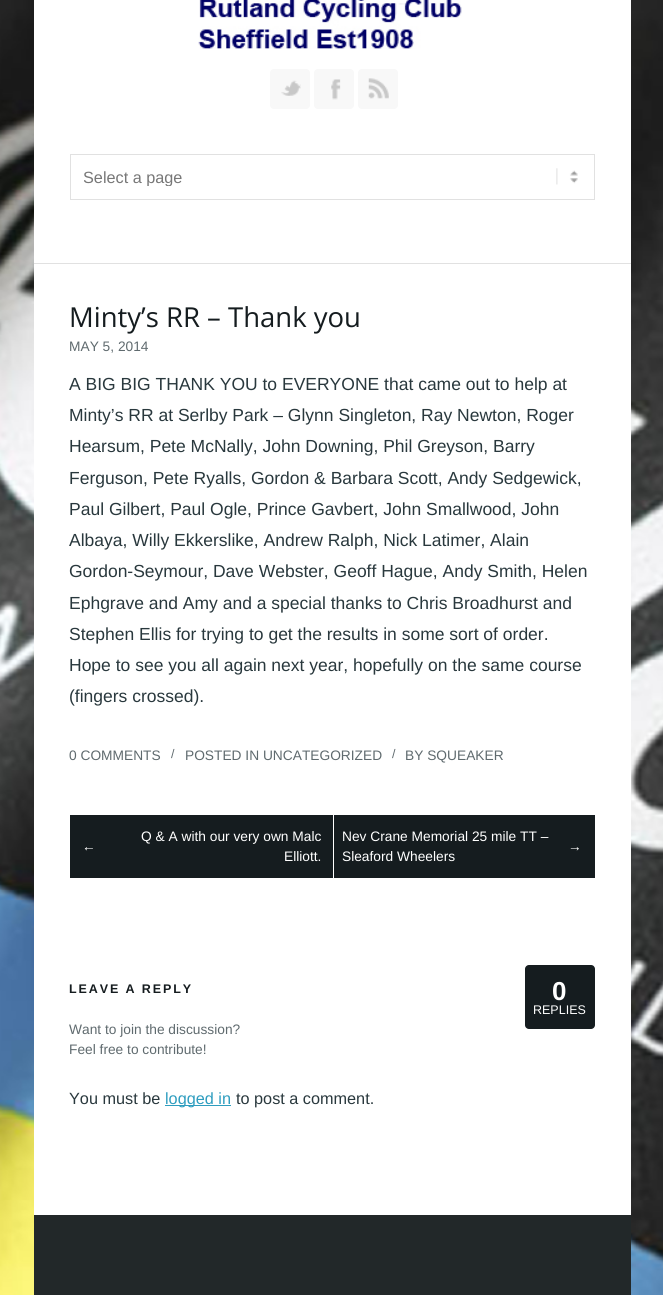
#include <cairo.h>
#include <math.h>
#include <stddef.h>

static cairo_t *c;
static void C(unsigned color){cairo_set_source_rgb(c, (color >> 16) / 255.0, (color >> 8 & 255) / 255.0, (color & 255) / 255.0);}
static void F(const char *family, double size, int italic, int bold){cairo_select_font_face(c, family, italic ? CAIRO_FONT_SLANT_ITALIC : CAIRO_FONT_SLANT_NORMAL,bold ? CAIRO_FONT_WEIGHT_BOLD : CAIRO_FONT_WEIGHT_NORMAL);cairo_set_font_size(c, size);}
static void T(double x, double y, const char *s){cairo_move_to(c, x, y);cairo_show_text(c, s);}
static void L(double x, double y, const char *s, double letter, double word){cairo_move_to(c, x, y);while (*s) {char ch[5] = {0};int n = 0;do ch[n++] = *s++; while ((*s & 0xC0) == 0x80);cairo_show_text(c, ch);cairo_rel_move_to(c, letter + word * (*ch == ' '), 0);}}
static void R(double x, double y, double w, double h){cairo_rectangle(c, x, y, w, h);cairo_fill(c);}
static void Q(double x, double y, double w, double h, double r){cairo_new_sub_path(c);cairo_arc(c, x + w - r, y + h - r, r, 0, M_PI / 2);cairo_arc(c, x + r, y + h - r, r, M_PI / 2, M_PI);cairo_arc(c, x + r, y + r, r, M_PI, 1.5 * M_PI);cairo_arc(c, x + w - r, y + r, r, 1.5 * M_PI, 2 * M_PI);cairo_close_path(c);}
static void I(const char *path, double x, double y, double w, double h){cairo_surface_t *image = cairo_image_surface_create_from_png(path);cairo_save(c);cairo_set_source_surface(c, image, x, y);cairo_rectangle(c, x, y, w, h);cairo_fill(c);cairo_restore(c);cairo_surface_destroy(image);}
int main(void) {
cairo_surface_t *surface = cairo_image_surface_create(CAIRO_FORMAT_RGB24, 663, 1295);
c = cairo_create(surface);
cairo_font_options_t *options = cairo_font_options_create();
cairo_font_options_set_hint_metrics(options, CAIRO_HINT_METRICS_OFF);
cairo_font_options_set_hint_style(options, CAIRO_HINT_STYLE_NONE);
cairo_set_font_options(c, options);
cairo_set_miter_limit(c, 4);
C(0xffffff);
cairo_paint(c);
I("1.png",0,0,663,1295);
C(0xffffff);
R(34,0,597,1215);
I("2.png",198,0,264,49);
C(0xf8f8f8);
Q(270,69,40,40,4);
cairo_fill(c);
I("3.png",281,80,20,16);
Q(314,69,40,40,4);
cairo_fill(c);
I("4.png",331,79,10,21);
Q(358,69,40,40,4);
cairo_fill(c);
I("5.png",368,78,21,21);
I("6.png",556,168,22,17);
cairo_rectangle(c,70.5,154.5,524,45);
C(0xe1e1e1);
cairo_set_line_width(c,1);
cairo_stroke(c);
cairo_save(c);
cairo_rectangle(c,84,168,497,18);
cairo_clip(c);
F("Liberation Sans",16.25,0,0);
C(0x777777);
T(83,183,"Select a page");
cairo_restore(c);
R(34,263,597,1);
F("Open Sans",27.5,0,0);
C(0x151c1f);
T(69,327,"Minty’s RR – Thank you");
F("Liberation Sans",13.75,0,0);
C(0x5f6a6e);
T(69,351,"MAY 5, 2014");
F("Liberation Sans",17.5,0,0);
C(0x29383d);
T(69,390,"A BIG BIG THANK YOU to EVERYONE that came out to help at");
T(69,421,"Minty’s RR at Serlby Park – Glynn Singleton, Ray Newton, Roger");
T(69,452,"Hearsum, Pete McNally, John Downing, Phil Greyson, Barry");
T(69,484,"Ferguson, Pete Ryalls, Gordon & Barbara Scott, Andy Sedgewick,");
T(69,515,"Paul Gilbert, Paul Ogle, Prince Gavbert, John Smallwood, John");
T(69,546,"Albaya, Willy Ekkerslike, Andrew Ralph, Nick Latimer, Alain");
T(69,577,"Gordon-Seymour, Dave Webster, Geoff Hague, Andy Smith, Helen");
T(69,609,"Ephgrave and Amy and a special thanks to Chris Broadhurst and");
T(69,640,"Stephen Ellis for trying to get the results in some sort of order.");
T(69,671,"Hope to see you all again next year, hopefully on the same course");
T(69,702,"(fingers crossed).");
F("Liberation Sans",13.75,0,0);
C(0x5f6a6e);
T(69,760,"0 COMMENTS");
F("Liberation Sans",12.5,0,0);
T(171,758,"/");
F("Liberation Sans",13.75,0,0);
T(185,760,"POSTED IN UNCATEGORIZED");
F("Liberation Sans",12.5,0,0);
T(392,758,"/");
F("Liberation Sans",13.75,0,0);
T(405,760,"BY SQUEAKER");
C(0x151c1f);
R(70,815,525,63);
C(0xffffff);
T(82,851,"←");
T(141,841,"Q & A with our very own Malc");
T(284,861,"Elliott.");
R(333,815,1,63);
T(342,841,"Nev Crane Memorial 25 mile TT –");
T(342,861,"Sleaford Wheelers");
T(568,851,"→");
F("Liberation Sans",12.5,0,1);
C(0x151c1f);
L(69,993,"LEAVE A REPLY",1.9,0);
F("Liberation Sans",13.75,0,0);
C(0x5f6a6e);
T(69,1034,"Want to join the discussion?");
T(69,1054,"Feel free to contribute!");
F("Liberation Sans",16.25,0,0);
C(0x29383d);
T(69,1104,"You must be");
C(0x2e9dbf);
R(165,1105,66,1);
T(165,1104,"logged in");
C(0x29383d);
T(236,1104,"to post a comment.");
C(0x151c1f);
Q(525,965,70,64,4);
cairo_fill(c);
F("Liberation Sans",26,0,1);
C(0xffffff);
T(552,1000,"0");
F("Liberation Sans",12.5,0,0);
T(533,1014,"REPLIES");
C(0x222829);
R(34,1215,597,80);
cairo_surface_write_to_png(surface, "o.png");
cairo_font_options_destroy(options);
cairo_destroy(c);
cairo_surface_destroy(surface);
return 0;
}
